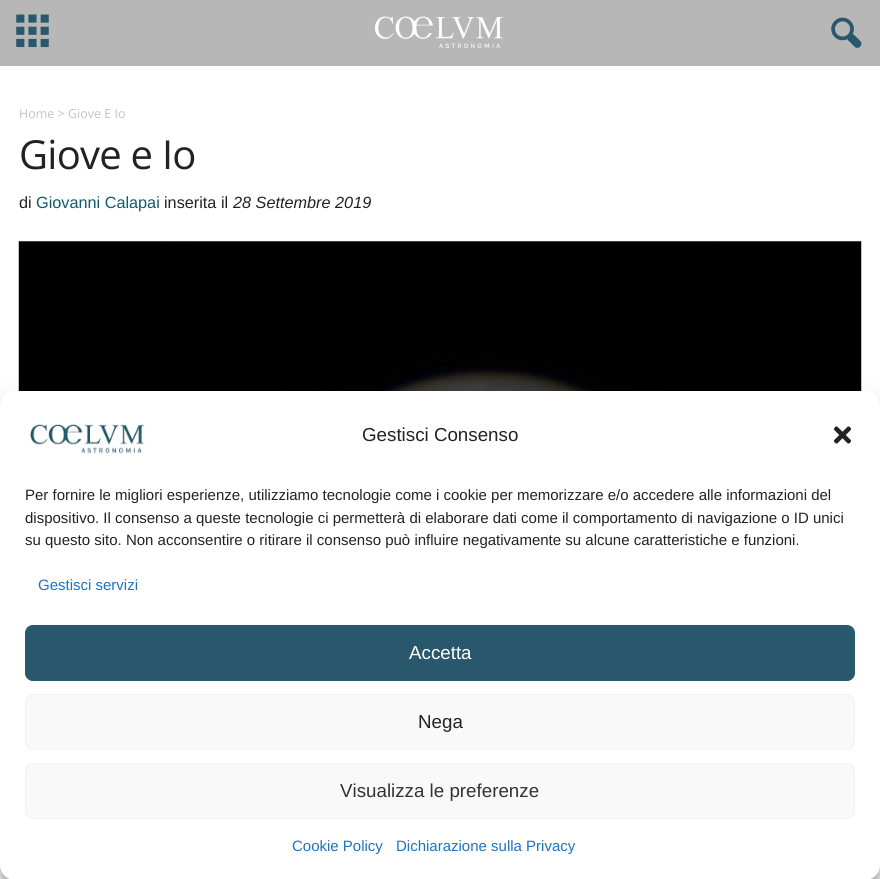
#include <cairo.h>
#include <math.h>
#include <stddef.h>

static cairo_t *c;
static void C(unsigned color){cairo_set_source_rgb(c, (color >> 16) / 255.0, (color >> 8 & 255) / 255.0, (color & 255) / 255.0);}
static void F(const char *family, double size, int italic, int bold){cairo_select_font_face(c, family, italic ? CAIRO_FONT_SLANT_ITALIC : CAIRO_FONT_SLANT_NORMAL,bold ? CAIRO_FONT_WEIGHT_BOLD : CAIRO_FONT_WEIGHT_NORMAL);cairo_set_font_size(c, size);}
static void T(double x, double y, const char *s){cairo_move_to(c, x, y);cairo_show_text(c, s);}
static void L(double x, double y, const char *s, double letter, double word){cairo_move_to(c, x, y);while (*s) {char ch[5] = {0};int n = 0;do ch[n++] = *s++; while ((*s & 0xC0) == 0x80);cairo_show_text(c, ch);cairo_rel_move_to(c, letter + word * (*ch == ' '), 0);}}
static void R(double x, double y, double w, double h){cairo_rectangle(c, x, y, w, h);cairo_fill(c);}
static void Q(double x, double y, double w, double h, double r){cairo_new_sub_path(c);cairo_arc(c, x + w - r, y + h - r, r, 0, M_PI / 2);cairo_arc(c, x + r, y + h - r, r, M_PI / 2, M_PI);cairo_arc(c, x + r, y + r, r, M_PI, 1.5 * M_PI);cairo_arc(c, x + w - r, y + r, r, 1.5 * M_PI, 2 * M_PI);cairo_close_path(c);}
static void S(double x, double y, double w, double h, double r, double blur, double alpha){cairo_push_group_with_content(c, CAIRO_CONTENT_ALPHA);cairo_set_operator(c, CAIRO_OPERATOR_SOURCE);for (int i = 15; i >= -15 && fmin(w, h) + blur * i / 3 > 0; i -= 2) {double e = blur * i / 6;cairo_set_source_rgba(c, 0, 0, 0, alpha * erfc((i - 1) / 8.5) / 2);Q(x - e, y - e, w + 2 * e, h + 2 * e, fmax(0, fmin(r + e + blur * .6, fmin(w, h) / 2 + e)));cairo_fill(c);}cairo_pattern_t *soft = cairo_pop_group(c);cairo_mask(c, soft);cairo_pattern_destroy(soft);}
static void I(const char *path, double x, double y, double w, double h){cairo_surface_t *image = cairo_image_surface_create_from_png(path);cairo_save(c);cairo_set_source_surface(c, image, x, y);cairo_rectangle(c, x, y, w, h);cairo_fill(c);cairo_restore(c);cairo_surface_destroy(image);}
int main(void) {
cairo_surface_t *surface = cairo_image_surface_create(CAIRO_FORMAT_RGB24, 880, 879);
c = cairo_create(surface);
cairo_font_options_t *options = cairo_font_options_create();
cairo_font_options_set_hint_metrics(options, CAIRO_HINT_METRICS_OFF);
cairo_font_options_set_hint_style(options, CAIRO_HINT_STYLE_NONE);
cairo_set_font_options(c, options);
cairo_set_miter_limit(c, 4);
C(0xffffff);
cairo_paint(c);
C(0xb7b7b7);
R(0,0,880,66);
I("1.png",16,14,33,34);
I("2.png",374,16,129,33);
I("3.png",831,17,31,31);
F("Open Sans",12.5,0,0);
C(0xc3c3c3);
T(19,118,"Home > Giove E Io");
F("Open Sans",40,0,0);
C(0x222222);
L(19,169,"Giove e Io",-.75,0);
F("Liberation Sans",16.25,0,0);
T(19,208,"di");
C(0x12596f);
T(36,208,"Giovanni Calapai");
C(0x222222);
T(164,208,"inserita il");
F("Liberation Sans",16.25,1,0);
T(233,208,"28 Settembre 2019");
I("4.png",18,241,844,150);
C(0x000000);
S(0,399,880,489,15,4,.23);
S(0,404,880,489,15,12.5,.19);
C(0xffffff);
Q(0,391,880,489,15);
cairo_fill(c);
I("5.png",30,423,115,31);
F("Liberation Sans",18.75,0,0);
C(0x222222);
T(362,441,"Gestisci Consenso");
I("6.png",833,426,19,18);
F("Liberation Sans",15,0,0);
T(25,500,"Per fornire le migliori esperienze, utilizziamo tecnologie come i cookie per memorizzare e/o accedere alle informazioni del");
T(25,523,"dispositivo. Il consenso a queste tecnologie ci permetterà di elaborare dati come il comportamento di navigazione o ID unici");
T(25,545,"su questo sito. Non acconsentire o ritirare il consenso può influire negativamente su alcune caratteristiche e funzioni.");
C(0x1e73be);
T(38,590,"Gestisci servizi");
C(0x29586c);
Q(25.5,625.5,829,55,7.5);
cairo_fill_preserve(c);
cairo_set_line_width(c,1);
cairo_stroke(c);
F("Liberation Sans",18.75,0,0);
C(0xffffff);
T(409,659,"Accetta");
C(0xf9f9f9);
Q(25.5,694.5,829,55,7.5);
cairo_fill_preserve(c);
C(0xf2f2f2);
cairo_stroke(c);
C(0x222222);
T(418,728,"Nega");
C(0xf9f9f9);
Q(25.5,763.5,829,55,7.5);
cairo_fill_preserve(c);
C(0xf2f2f2);
cairo_stroke(c);
C(0x333333);
T(340,797,"Visualizza le preferenze");
F("Liberation Sans",15,0,0);
C(0x1e73be);
T(292,851,"Cookie Policy");
T(396,851,"Dichiarazione sulla Privacy");
cairo_surface_write_to_png(surface, "o.png");
cairo_font_options_destroy(options);
cairo_destroy(c);
cairo_surface_destroy(surface);
return 0;
}
